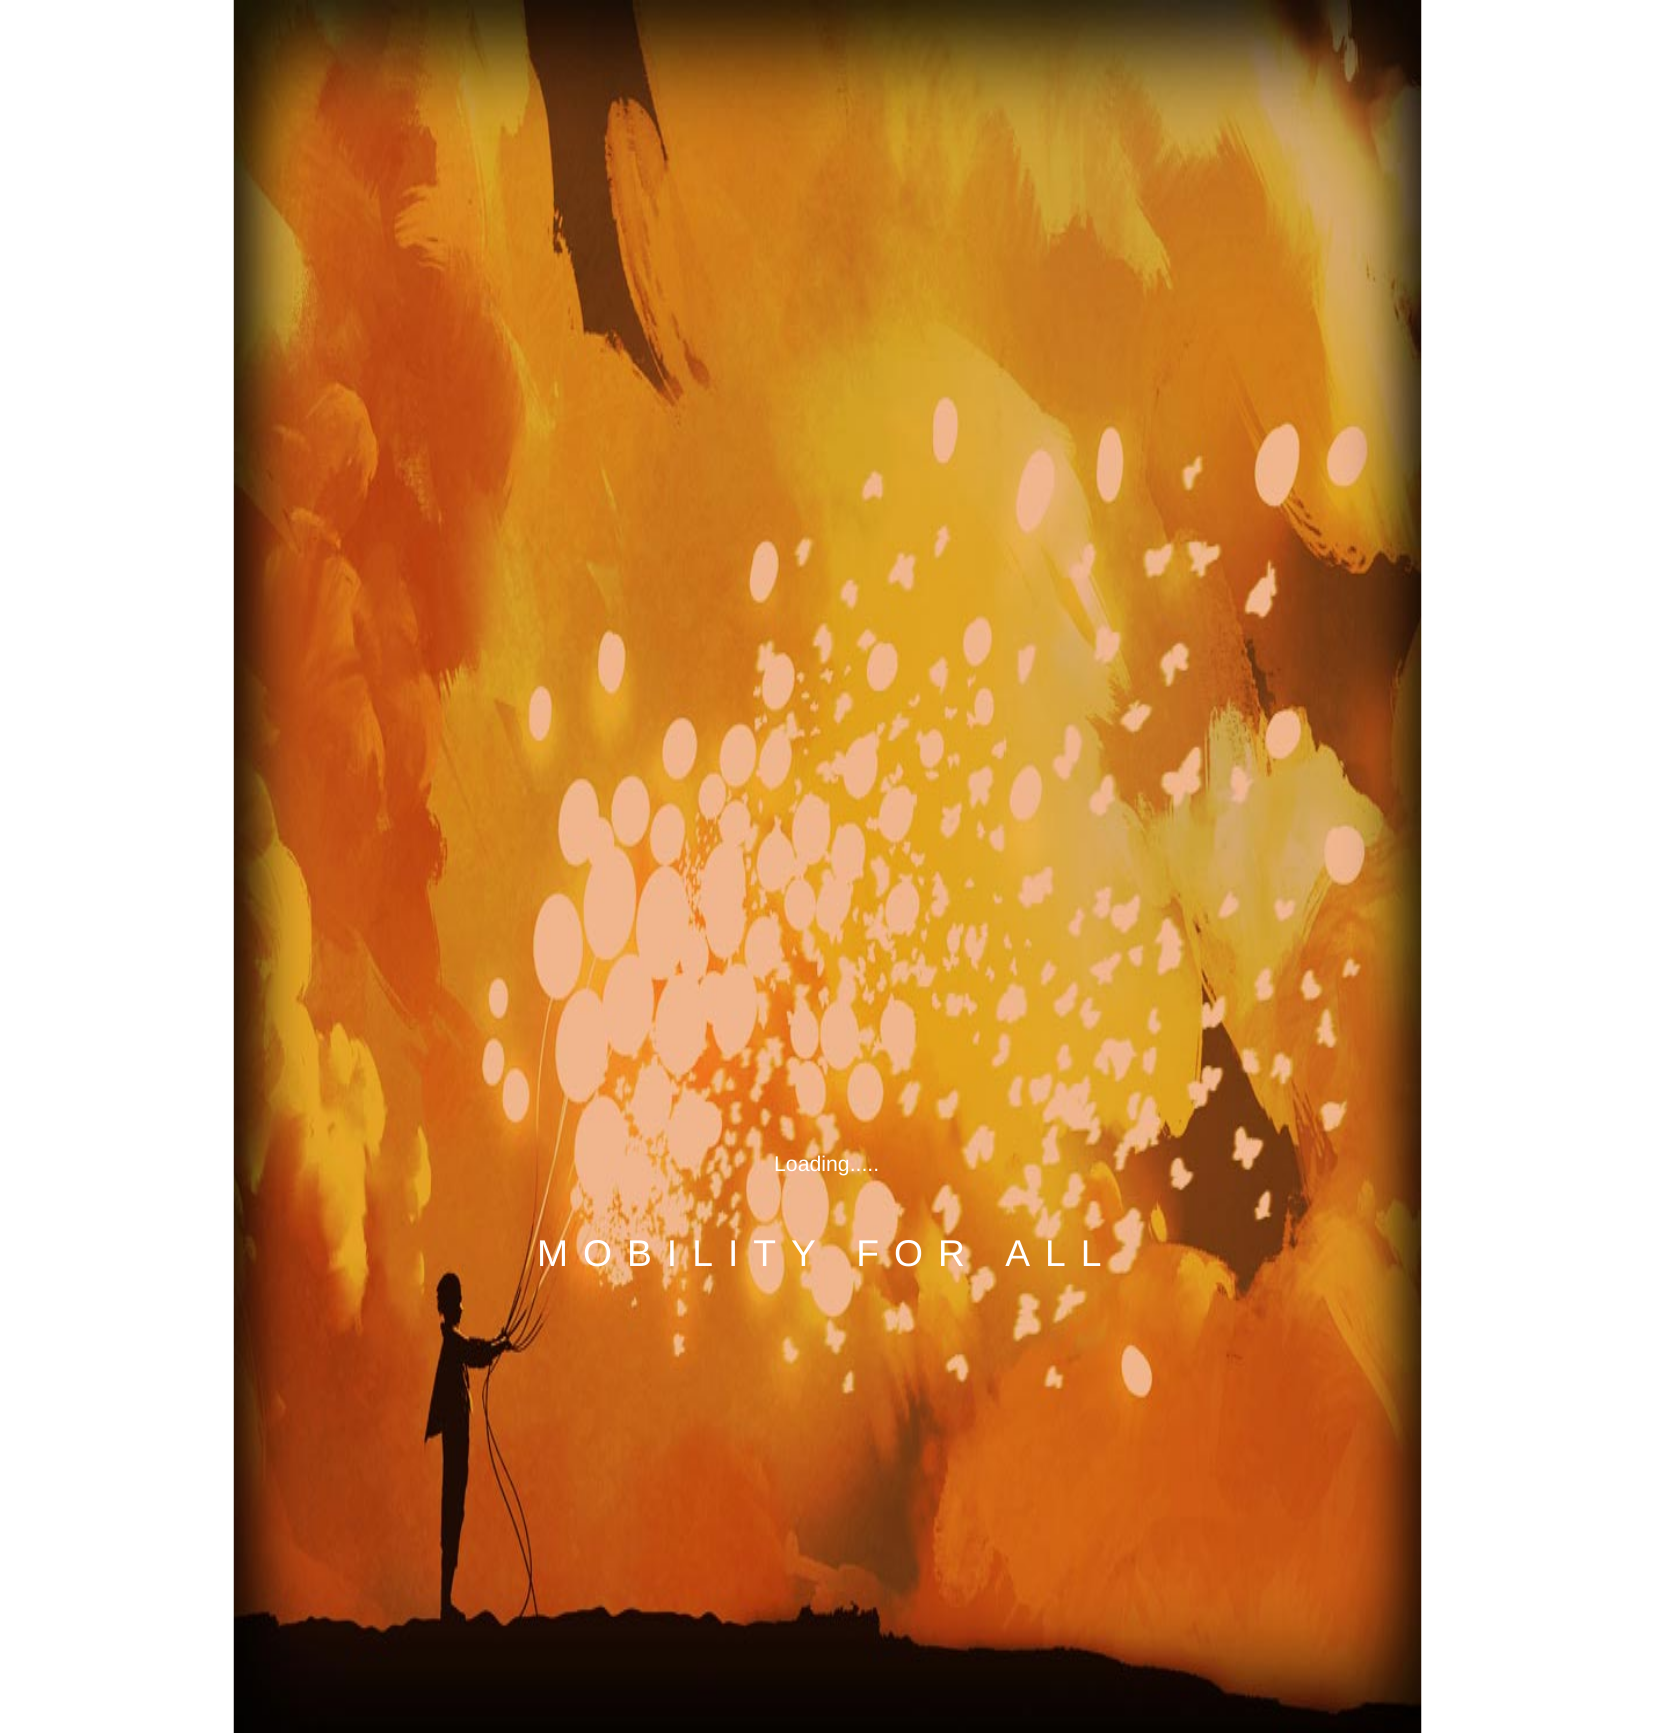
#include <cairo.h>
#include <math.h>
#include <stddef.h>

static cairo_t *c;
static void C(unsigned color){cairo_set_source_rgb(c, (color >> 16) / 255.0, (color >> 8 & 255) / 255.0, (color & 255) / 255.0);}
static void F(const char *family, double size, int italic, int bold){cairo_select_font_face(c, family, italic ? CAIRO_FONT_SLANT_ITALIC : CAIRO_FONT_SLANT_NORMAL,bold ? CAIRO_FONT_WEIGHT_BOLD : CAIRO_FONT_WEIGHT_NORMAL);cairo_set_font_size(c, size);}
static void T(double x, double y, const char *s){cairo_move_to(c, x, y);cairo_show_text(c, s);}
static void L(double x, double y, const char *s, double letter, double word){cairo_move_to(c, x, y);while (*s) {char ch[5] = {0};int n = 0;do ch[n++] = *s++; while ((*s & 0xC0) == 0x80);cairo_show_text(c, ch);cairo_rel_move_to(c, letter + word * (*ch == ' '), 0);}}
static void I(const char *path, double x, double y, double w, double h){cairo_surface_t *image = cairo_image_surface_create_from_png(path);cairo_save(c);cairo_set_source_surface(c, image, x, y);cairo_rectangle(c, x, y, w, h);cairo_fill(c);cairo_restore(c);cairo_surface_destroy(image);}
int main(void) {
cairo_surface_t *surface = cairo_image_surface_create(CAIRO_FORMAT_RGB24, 1653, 1733);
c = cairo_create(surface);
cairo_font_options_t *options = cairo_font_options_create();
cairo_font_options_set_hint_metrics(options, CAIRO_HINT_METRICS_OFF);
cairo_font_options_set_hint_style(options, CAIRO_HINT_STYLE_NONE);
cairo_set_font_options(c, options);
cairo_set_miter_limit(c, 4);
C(0xffffff);
cairo_paint(c);
I("1.png",233,0,1189,1733);
F("Liberation Sans",21.25,0,0);
C(0xffffff);
T(774,1171,"Loading.....");
F("Liberation Sans",37.25,0,0);
L(537,1266,"MOBILITY FOR ALL",15,0);
cairo_surface_write_to_png(surface, "o.png");
cairo_font_options_destroy(options);
cairo_destroy(c);
cairo_surface_destroy(surface);
return 0;
}
